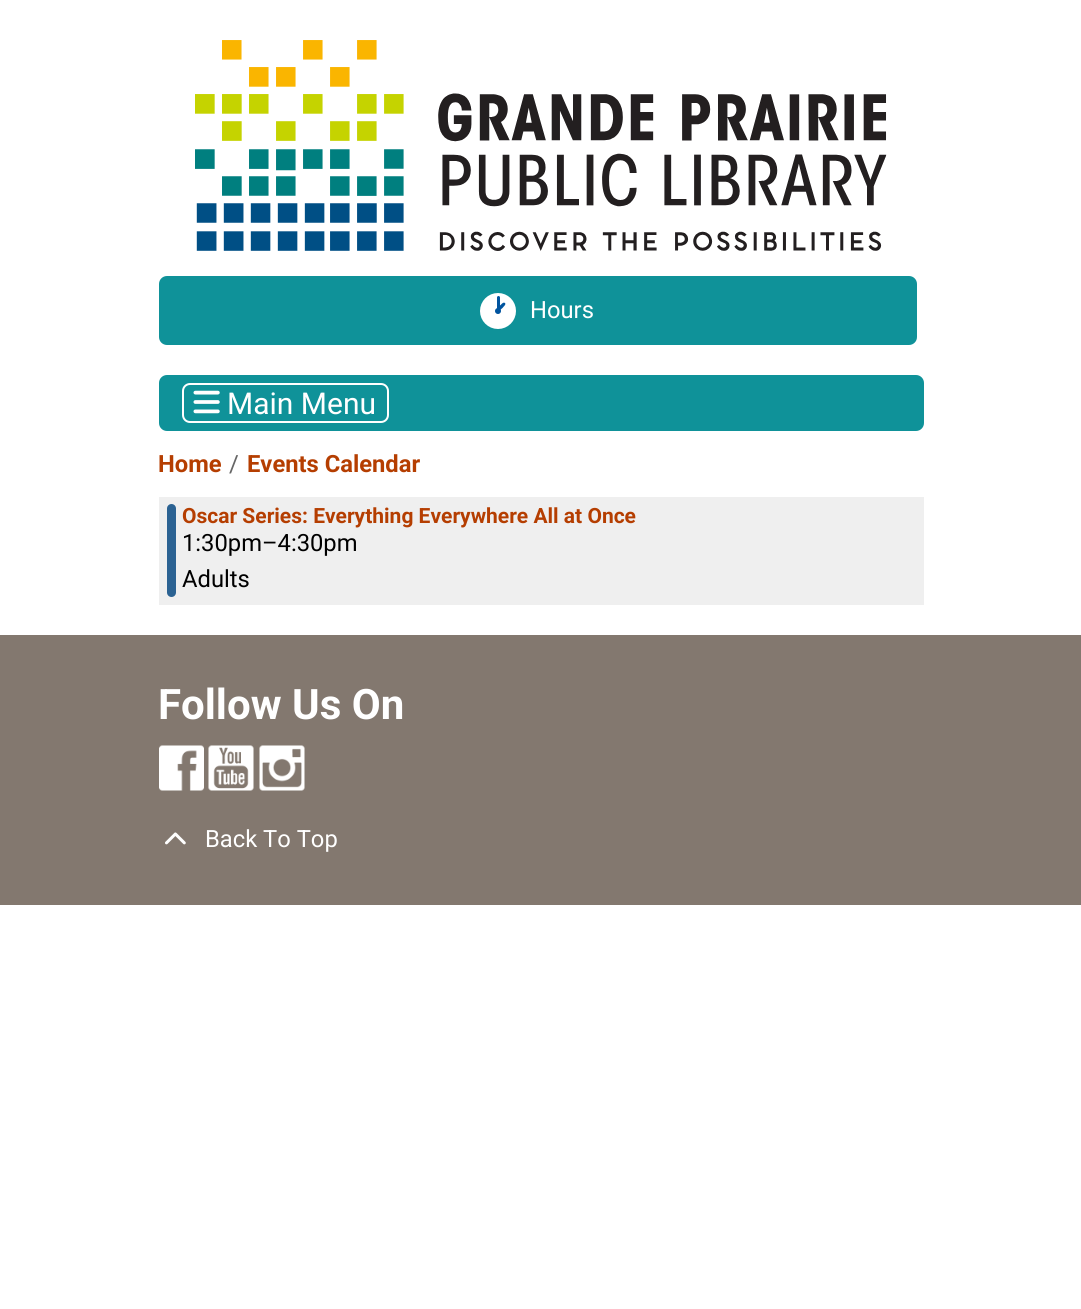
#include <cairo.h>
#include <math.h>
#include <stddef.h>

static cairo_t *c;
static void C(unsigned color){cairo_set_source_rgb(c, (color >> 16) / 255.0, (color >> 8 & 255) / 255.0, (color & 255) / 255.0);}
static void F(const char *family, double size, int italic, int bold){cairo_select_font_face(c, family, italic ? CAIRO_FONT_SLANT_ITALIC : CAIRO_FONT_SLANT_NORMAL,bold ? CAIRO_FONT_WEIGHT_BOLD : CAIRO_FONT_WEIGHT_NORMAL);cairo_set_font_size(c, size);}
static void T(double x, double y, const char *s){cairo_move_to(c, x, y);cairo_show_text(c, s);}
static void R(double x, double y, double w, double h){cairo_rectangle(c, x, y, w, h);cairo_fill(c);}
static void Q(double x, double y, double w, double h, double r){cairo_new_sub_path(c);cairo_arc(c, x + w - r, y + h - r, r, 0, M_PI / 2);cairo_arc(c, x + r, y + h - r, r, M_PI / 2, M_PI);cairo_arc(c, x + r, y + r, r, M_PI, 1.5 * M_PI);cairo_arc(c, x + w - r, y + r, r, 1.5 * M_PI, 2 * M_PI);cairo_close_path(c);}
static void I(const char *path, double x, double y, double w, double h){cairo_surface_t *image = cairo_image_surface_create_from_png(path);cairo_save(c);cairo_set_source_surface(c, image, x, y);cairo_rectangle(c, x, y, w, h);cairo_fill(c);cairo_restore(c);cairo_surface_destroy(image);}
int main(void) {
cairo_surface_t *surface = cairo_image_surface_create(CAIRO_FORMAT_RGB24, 1081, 1309);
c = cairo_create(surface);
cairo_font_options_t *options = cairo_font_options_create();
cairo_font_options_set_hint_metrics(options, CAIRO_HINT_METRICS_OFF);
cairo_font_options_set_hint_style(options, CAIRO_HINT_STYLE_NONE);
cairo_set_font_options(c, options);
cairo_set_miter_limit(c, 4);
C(0xffffff);
cairo_paint(c);
I("1.png",195,40,692,211);
C(0x0f9299);
Q(160,277,756,67,7);
cairo_fill_preserve(c);
cairo_stroke(c);
C(0x00549f);
cairo_arc(c,498,311,10.5,0,2 * M_PI);
cairo_fill_preserve(c);
C(0xffffff);
cairo_set_line_width(c,15);
cairo_stroke(c);
C(0x00549f);
Q(497,296,3,15,1.5);
cairo_fill(c);
cairo_new_path(c);
cairo_move_to(c,505,303);
cairo_curve_to(c,506.5,304.5,503,307,502.5,308);
cairo_curve_to(c,501.5,308.5,499,312,497.5,310.5);
cairo_curve_to(c,496,309,499,306.5,500,305.5);
cairo_curve_to(c,501,305,503,301.5,505,303);
cairo_close_path(c);
cairo_fill(c);
F("Roboto",23.75,0,0);
C(0xffffff);
T(530,318,"Hours");
C(0x0f9299);
Q(159,375,765,56,8);
cairo_fill(c);
Q(183,384,205,38,7);
C(0xffffff);
cairo_set_line_width(c,2);
cairo_stroke(c);
I("2.png",193,390,27,24);
F("Roboto",30,0,0);
T(227,414,"Main Menu");
F("Roboto",23.75,0,1);
C(0xb53e01);
T(158,472,"Home");
F("Roboto",23.75,0,0);
C(0x666666);
T(229,472,"/");
F("Roboto",23.75,0,1);
C(0xb53e01);
T(247,472,"Events Calendar");
C(0xefefef);
R(159,497,765,108);
C(0x2b6292);
Q(167,504,9,93,4.5);
cairo_fill(c);
F("Roboto",21,0,1);
C(0xb53e01);
T(182,523,"Oscar Series: Everything Everywhere All at Once");
F("Roboto",23.75,0,0);
C(0x000000);
T(182,551,"1:30pm–4:30pm");
T(182,587,"Adults");
C(0x83786f);
R(0,635,1081,270);
F("Roboto",42,0,1);
C(0xffffff);
T(158,719,"Follow Us On");
I("3.png",159,745,45,46);
I("4.png",208,745,46,46);
I("5.png",259,745,46,46);
I("6.png",165,832,21,13);
F("Roboto",23.75,0,0);
T(205,847,"Back To Top");
cairo_surface_write_to_png(surface, "o.png");
cairo_font_options_destroy(options);
cairo_destroy(c);
cairo_surface_destroy(surface);
return 0;
}
